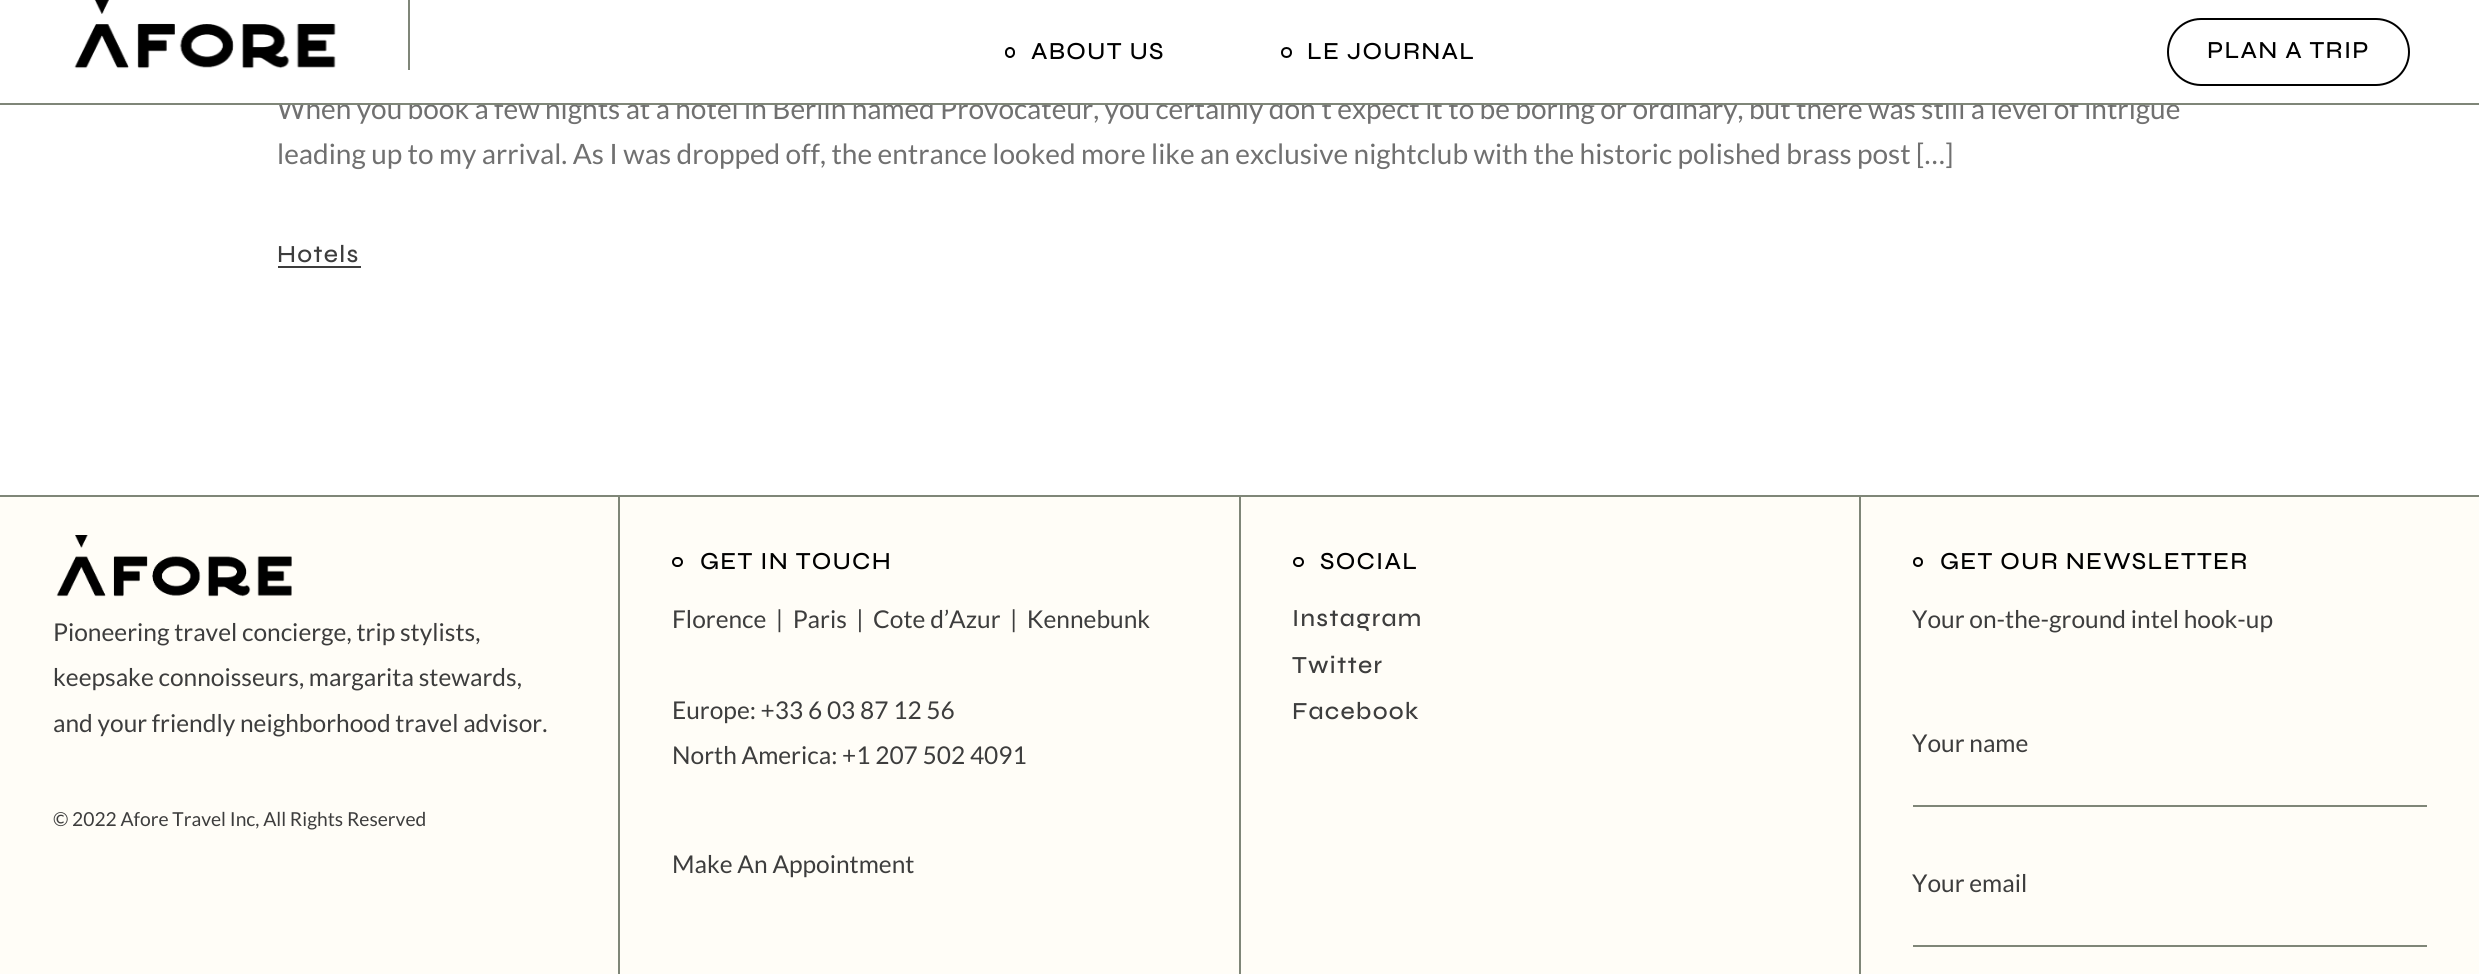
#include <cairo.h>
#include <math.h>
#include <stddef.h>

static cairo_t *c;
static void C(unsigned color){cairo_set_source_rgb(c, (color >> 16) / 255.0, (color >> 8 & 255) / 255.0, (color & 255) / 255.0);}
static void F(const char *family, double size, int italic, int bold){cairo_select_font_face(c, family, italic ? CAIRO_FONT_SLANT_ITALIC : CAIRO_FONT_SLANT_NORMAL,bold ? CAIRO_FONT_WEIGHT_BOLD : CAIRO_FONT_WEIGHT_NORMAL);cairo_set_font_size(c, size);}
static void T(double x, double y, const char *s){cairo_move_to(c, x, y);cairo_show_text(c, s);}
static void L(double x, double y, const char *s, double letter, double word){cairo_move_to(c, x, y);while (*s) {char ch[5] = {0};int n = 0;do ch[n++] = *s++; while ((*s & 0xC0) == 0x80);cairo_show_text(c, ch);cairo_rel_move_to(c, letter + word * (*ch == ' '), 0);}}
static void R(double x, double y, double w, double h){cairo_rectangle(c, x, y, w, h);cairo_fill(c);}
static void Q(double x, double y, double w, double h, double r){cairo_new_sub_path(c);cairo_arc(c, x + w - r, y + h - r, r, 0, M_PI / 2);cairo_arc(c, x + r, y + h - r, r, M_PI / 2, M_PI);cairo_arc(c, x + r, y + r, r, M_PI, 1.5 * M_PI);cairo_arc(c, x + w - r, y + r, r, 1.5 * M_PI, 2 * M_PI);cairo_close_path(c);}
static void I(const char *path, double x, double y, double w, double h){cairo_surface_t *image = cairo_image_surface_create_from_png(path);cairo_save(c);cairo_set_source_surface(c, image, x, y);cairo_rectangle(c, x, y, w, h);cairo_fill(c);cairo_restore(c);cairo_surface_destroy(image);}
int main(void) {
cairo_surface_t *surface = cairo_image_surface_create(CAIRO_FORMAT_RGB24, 2479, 974);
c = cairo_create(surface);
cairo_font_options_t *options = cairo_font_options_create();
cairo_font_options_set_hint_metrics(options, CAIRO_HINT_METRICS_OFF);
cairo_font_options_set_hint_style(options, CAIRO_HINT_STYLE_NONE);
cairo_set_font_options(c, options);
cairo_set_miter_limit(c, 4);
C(0xffffff);
cairo_paint(c);
F("Lato",28,0,0);
C(0x707070);
T(277,119,"When you book a few nights at a hotel in Berlin named Provocateur, you certainly don’t expect it to be boring or ordinary, but there was still a level of intrigue");
C(0xffffff);
R(277,97,1858,6);
C(0x7f8678);
R(0,103,2479,2);
R(408,0,2,70);
I("1.png",74,0,262,69);
Q(1006,48,8,9,4);
C(0x000000);
cairo_stroke(c);
F("Syne Medium",24.5,0,0);
L(1031,59,"ABOUT US",1.25,0);
cairo_new_path(c);
cairo_arc(c,1286.5,52.5,4.5,0,2 * M_PI);
cairo_stroke(c);
L(1307,59,"LE JOURNAL",1.25,0);
Q(2168,19,241,66,33);
cairo_stroke(c);
L(2207,58,"PLAN A TRIP",1.25,0);
F("Lato",28,0,0);
C(0x707070);
T(277,164,"leading up to my arrival. As I was dropped off, the entrance looked more like an exclusive nightclub with the historic polished brass post […]");
F("Syne Medium",24.5,0,0);
C(0x3d3d3d);
L(277,262,"Hotels",1.25,0);
R(278,266,83,2);
C(0xfffdf7);
R(0,497,2479,477);
C(0x7f8678);
R(0,495,2479,2);
R(618,497,2,477);
I("2.png",56,535,236,62);
F("Lato",24.5,0,0);
C(0x3d3d3d);
T(53,641,"Pioneering travel concierge, trip stylists,");
T(53,686,"keepsake connoisseurs, margarita stewards,");
T(53,732,"and your friendly neighborhood travel advisor.");
F("Lato",19.25,0,0);
T(53,826,"© 2022 Afore Travel Inc, All Rights Reserved");
C(0x7f8678);
R(1239,497,2,477);
Q(673,558,9,8,4);
C(0x000000);
cairo_stroke(c);
F("Syne Medium",24.5,0,0);
L(700,569,"GET IN TOUCH",1.25,0);
F("Lato",24.5,0,0);
C(0x3d3d3d);
T(672,628,"Florence  |  Paris  |  Cote d’Azur  |  Kennebunk");
T(672,719,"Europe: +33 6 03 87 12 56");
T(672,764,"North America: +1 207 502 4091");
T(672,873,"Make An Appointment");
C(0x7f8678);
R(1859,497,2,477);
Q(1294,558,9,8,4);
C(0x000000);
cairo_stroke(c);
F("Syne Medium",24.5,0,0);
L(1320,569,"SOCIAL",1.25,0);
C(0x3d3d3d);
L(1292,626,"Instagram",1.25,0);
L(1292,673,"Twitter",1.25,0);
L(1292,719,"Facebook",1.25,0);
cairo_new_path(c);
cairo_arc(c,1918,562,4,0,2 * M_PI);
C(0x000000);
cairo_stroke(c);
L(1940,569,"GET OUR NEWSLETTER",1.25,0);
F("Lato",24.5,0,0);
C(0x3d3d3d);
T(1912,628,"Your on-the-ground intel hook-up");
T(1912,752,"Your name");
C(0x7f8678);
R(1913,805,514,2);
C(0x3d3d3d);
T(1912,892,"Your email");
C(0x7f8678);
R(1913,945,514,2);
cairo_surface_write_to_png(surface, "o.png");
cairo_font_options_destroy(options);
cairo_destroy(c);
cairo_surface_destroy(surface);
return 0;
}
